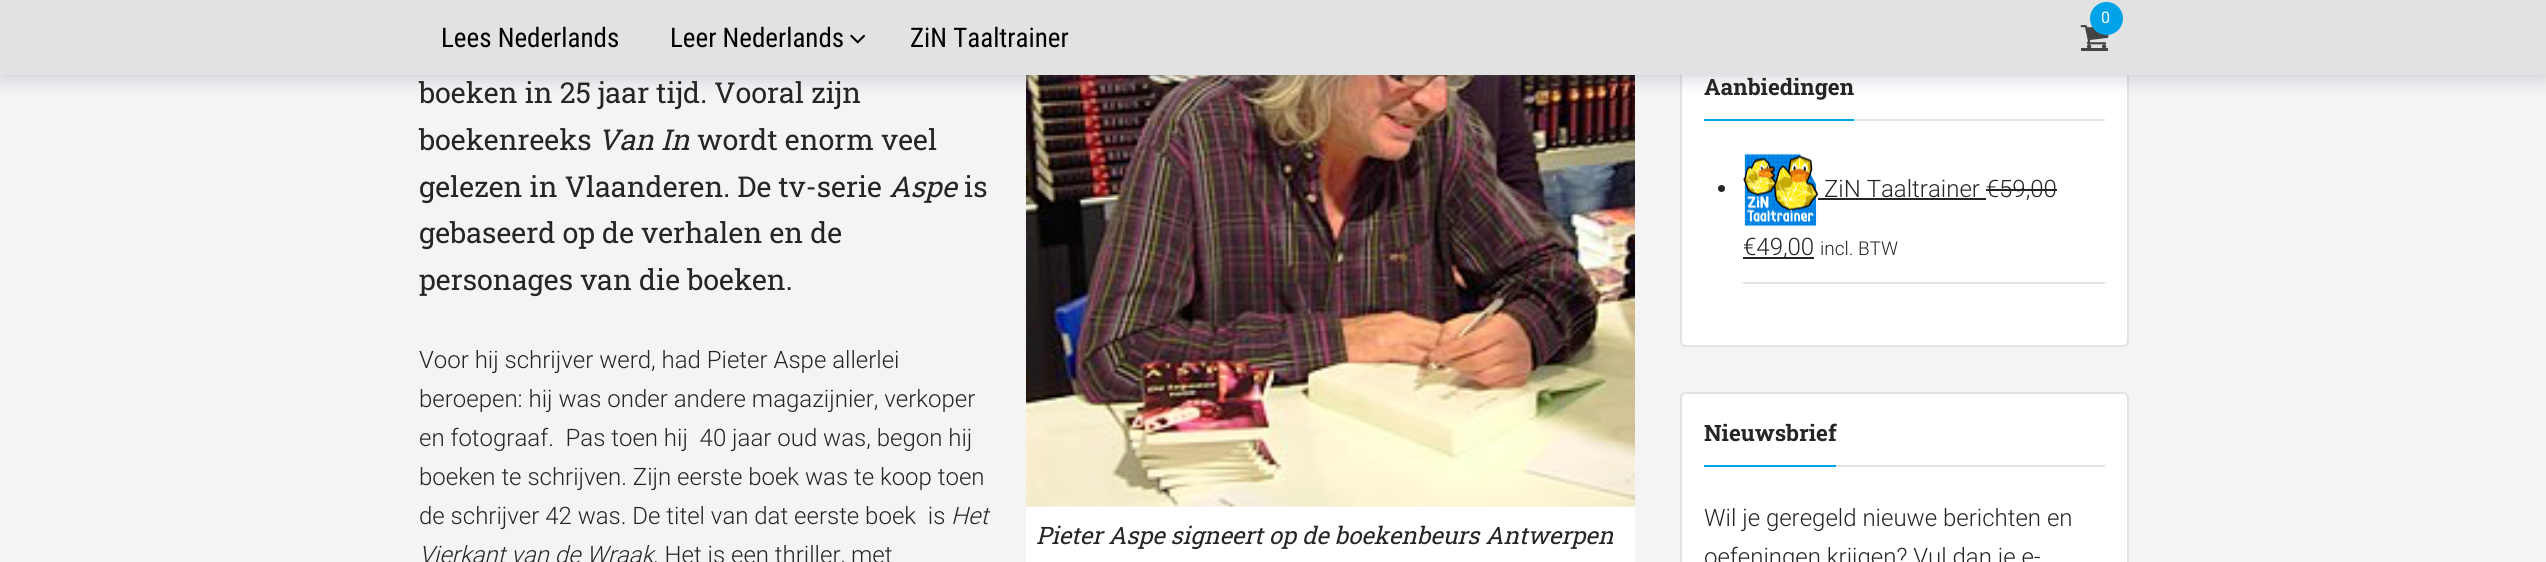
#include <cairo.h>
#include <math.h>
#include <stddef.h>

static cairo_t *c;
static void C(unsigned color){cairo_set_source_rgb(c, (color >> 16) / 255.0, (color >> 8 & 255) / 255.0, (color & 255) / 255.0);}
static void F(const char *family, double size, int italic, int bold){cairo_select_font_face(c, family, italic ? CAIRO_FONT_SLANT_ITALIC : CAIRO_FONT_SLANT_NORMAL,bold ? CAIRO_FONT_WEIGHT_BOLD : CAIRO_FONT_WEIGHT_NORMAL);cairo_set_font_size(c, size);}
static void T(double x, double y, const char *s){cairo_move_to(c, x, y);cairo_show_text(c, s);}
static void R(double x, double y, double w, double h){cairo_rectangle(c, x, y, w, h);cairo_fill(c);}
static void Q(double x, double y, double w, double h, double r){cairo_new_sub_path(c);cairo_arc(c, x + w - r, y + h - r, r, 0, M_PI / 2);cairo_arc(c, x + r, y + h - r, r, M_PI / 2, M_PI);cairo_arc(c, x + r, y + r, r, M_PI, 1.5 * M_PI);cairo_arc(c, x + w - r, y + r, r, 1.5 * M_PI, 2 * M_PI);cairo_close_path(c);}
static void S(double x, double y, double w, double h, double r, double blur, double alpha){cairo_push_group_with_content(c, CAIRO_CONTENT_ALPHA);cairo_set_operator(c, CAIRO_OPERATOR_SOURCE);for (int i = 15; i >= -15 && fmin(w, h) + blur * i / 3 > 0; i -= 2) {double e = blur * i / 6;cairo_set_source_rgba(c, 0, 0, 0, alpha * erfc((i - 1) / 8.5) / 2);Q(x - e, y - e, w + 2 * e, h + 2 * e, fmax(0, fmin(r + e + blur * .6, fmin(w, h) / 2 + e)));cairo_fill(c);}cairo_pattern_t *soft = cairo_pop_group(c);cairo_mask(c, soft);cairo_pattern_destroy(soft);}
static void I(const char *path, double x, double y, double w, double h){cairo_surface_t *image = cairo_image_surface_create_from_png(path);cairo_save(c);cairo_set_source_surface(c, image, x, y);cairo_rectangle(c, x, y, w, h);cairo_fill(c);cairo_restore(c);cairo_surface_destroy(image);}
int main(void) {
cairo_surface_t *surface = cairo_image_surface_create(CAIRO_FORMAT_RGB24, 2546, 562);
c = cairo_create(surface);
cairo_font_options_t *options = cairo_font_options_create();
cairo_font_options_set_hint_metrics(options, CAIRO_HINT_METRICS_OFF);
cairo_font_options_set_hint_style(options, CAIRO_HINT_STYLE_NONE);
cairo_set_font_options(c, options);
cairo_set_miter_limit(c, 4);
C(0xf4f4f4);
cairo_paint(c);
I("3.png",1026,75,609,432);
C(0xffffff);
Q(1681,48,447,298,5);
cairo_fill_preserve(c);
C(0xe3e3e3);
cairo_stroke(c);
C(0x41476b);
S(0,8,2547,75,0,7.5,.15);
cairo_set_source_rgba(c,0.545,0.553,0.62,0.05);
R(0,75,2546,2);
C(0xe2e2e2);
R(0,0,2546,75);
I("1.png",2080,25,29,23);
C(0x00a2e8);
cairo_arc(c,2106.5,18.5,16.5,0,2 * M_PI);
cairo_fill(c);
F("Roboto",16,0,0);
C(0xffffff);
T(2101,23,"0");
C(0x444444);
R(2081,48,27,3);
F("Roboto Condensed",27,0,0);
C(0x000000);
T(441,47,"Lees Nederlands");
T(670,47,"Leer Nederlands");
I("2.png",850,34,16,10);
T(910,47,"ZiN Taaltrainer");
F("Roboto Slab",28.75,0,0);
C(0x252525);
T(419,103,"boeken in 25 jaar tijd. Vooral zijn");
T(419,150,"boekenreeks");
F("Roboto Slab",28.75,1,0);
T(598,150,"Van In");
F("Roboto Slab",28.75,0,0);
T(697,150,"wordt enorm veel");
T(419,197,"gelezen in Vlaanderen. De tv-serie");
F("Roboto Slab",28.75,1,0);
T(889,197,"Aspe");
F("Roboto Slab",28.75,0,0);
T(964,197,"is");
T(419,243,"gebaseerd op de verhalen en de");
T(419,290,"personages van die boeken.");
F("Roboto Light",24,0,0);
T(419,368,"Voor hij schrijver werd, had Pieter Aspe allerlei");
T(419,407,"beroepen: hij was onder andere magazijnier, verkoper");
T(419,446,"en fotograaf.  Pas toen hij  40 jaar oud was, begon hij");
T(419,485,"boeken te schrijven. Zijn eerste boek was te koop toen");
T(419,524,"de schrijver 42 was. De titel van dat eerste boek  is");
F("Roboto Light",24,1,0);
T(951,524,"Het");
T(419,563,"Vierkant van de Wraak");
F("Roboto Light",24,0,0);
T(653,563,". Het is een thriller, met");
C(0xffffff);
R(1026,507,609,55);
F("Roboto Slab",24,1,0);
C(0x252525);
T(1036,544,"Pieter Aspe signeert op de boekenbeurs Antwerpen");
C(0xe3e3e3);
R(1854,119,251,2);
C(0x00a2e8);
R(1704,119,150,2);
F("Roboto Slab",22.5,0,1);
C(0x252525);
T(1704,95,"Aanbiedingen");
C(0xe3e3e3);
R(1743,282,362,2);
C(0x252525);
cairo_new_path(c);
cairo_arc(c,1721.5,188.5,3.5,0,2 * M_PI);
cairo_fill(c);
I("4.png",1743,153,75,74);
R(1818,198,168,2);
F("Roboto Light",24,0,0);
T(1824,197,"ZiN Taaltrainer €59,00");
R(1986,189,71,2);
R(1743,257,71,2);
T(1743,255,"€49,00");
F("Roboto Light",19,0,0);
T(1820,255,"incl. BTW");
C(0xffffff);
Q(1681,393,447,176,5);
cairo_fill_preserve(c);
C(0xe3e3e3);
cairo_stroke(c);
R(1836,465,269,2);
C(0x00a2e8);
R(1704,465,132,2);
F("Roboto Slab",22.5,0,1);
C(0x252525);
T(1704,441,"Nieuwsbrief");
F("Roboto Light",24,0,0);
T(1704,526,"Wil je geregeld nieuwe berichten en");
T(1704,565,"oefeningen krijgen? Vul dan je e-");
cairo_surface_write_to_png(surface, "o.png");
cairo_font_options_destroy(options);
cairo_destroy(c);
cairo_surface_destroy(surface);
return 0;
}
